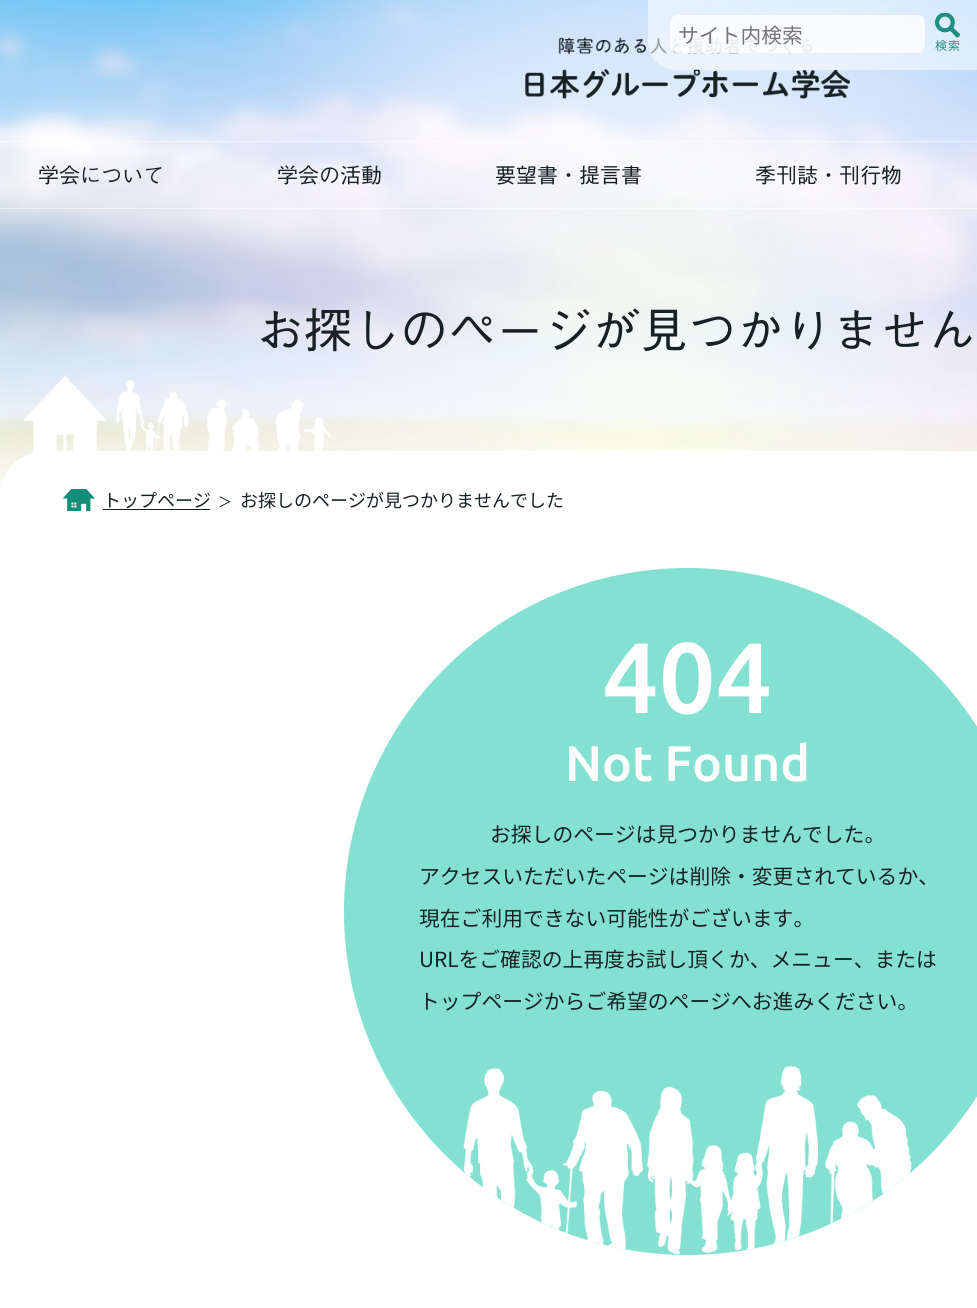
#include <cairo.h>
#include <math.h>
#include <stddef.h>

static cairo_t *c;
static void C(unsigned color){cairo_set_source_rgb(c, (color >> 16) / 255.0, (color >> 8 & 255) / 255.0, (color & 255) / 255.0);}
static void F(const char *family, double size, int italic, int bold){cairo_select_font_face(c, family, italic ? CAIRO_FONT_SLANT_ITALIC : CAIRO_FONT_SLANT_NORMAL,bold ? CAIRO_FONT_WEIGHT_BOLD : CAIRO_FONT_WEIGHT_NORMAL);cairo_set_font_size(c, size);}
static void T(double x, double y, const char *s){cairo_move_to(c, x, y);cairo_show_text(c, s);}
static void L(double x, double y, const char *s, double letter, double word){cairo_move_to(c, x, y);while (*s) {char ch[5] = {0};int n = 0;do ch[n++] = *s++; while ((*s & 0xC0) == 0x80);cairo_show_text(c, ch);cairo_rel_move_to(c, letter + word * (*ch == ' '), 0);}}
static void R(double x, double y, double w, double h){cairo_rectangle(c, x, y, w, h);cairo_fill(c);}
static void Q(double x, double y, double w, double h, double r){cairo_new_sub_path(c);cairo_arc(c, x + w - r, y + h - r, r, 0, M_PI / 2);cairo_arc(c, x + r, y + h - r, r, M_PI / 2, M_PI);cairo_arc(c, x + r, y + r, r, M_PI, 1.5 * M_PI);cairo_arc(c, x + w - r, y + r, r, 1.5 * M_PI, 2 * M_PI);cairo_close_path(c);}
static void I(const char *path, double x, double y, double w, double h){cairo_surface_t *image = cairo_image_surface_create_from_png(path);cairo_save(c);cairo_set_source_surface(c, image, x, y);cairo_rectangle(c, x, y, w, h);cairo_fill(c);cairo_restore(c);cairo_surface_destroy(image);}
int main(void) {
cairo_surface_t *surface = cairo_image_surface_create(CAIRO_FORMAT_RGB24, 977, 1308);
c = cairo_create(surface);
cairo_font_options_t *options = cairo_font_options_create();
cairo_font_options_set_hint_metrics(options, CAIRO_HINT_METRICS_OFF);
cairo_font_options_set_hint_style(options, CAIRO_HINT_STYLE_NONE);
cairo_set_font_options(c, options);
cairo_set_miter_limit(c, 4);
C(0xffffff);
cairo_paint(c);
I("2.png",0,0,977,496);
I("3.png",525,37,325,62);
cairo_set_source_rgba(c,1,1,1,0.5);
cairo_new_path(c);
cairo_move_to(c,648,0);
cairo_line_to(c,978,0);
cairo_line_to(c,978,70);
cairo_line_to(c,676,70);
cairo_curve_to(c,660.5,70,648,57.5,648,42);
cairo_close_path(c);
cairo_fill(c);
cairo_set_source_rgba(c,1,1,1,0.8);
Q(670,15,255,38,8);
cairo_fill(c);
F("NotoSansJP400",20.8,0,0);
C(0x757575);
T(678,43,"サイト内検索");
I("1.png",935,13,25,25);
F("NotoSansJP400",12,0,0);
C(0x1d8e80);
L(935,50,"検索",1,0);
cairo_set_source_rgba(c,1,1,1,0.5);
R(0,141,977,1);
R(0,208,977,1);
F("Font",21,0,0);
C(0x172124);
T(38,183,"学会について");
T(277,183,"学会の活動");
T(495,183,"要望書・提言書");
T(755,183,"季刊誌・刊行物");
F("Font",48,0,0);
T(256,348,"お探しのページが見つかりません");
I("4.png",23,376,308,77);
C(0xffffff);
cairo_new_path(c);
cairo_move_to(c,45,451);
cairo_line_to(c,977,451);
cairo_curve_to(c,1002,451,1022,471,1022,496);
cairo_line_to(c,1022,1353);
cairo_line_to(c,0,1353);
cairo_line_to(c,0,496);
cairo_curve_to(c,0,471,20,451,45,451);
cairo_close_path(c);
cairo_fill(c);
I("5.png",63,489,32,22);
F("NotoSansJP400",18,0,0);
C(0x172124);
T(103,507,"トップページ");
R(103,509,107,1);
F("NotoSansJP400",14,0,0);
T(218,507,"＞");
F("NotoSansJP400",18,0,0);
T(240,507,"お探しのページが見つかりませんでした");
C(0x84e1d1);
cairo_new_path(c);
cairo_arc(c,687.5,911.5,343.5,0,2 * M_PI);
cairo_fill(c);
I("6.png",463,1066,449,189);
F("Ubuntu Medium",100,0,0);
C(0xffffff);
T(602,713,"404");
F("Ubuntu Medium",50,0,0);
T(565,781,"Not Found");
F("NotoSansJP400",20.8,0,0);
C(0x172124);
T(490,842,"お探しのページは見つかりませんでした。");
T(419,884,"アクセスいただいたページは削除・変更されているか、");
T(419,926,"現在ご利用できない可能性がございます。");
T(419,967,"URLをご確認の上再度お試し頂くか、メニュー、または");
T(419,1009,"トップページからご希望のページへお進みください。");
cairo_surface_write_to_png(surface, "o.png");
cairo_font_options_destroy(options);
cairo_destroy(c);
cairo_surface_destroy(surface);
return 0;
}
